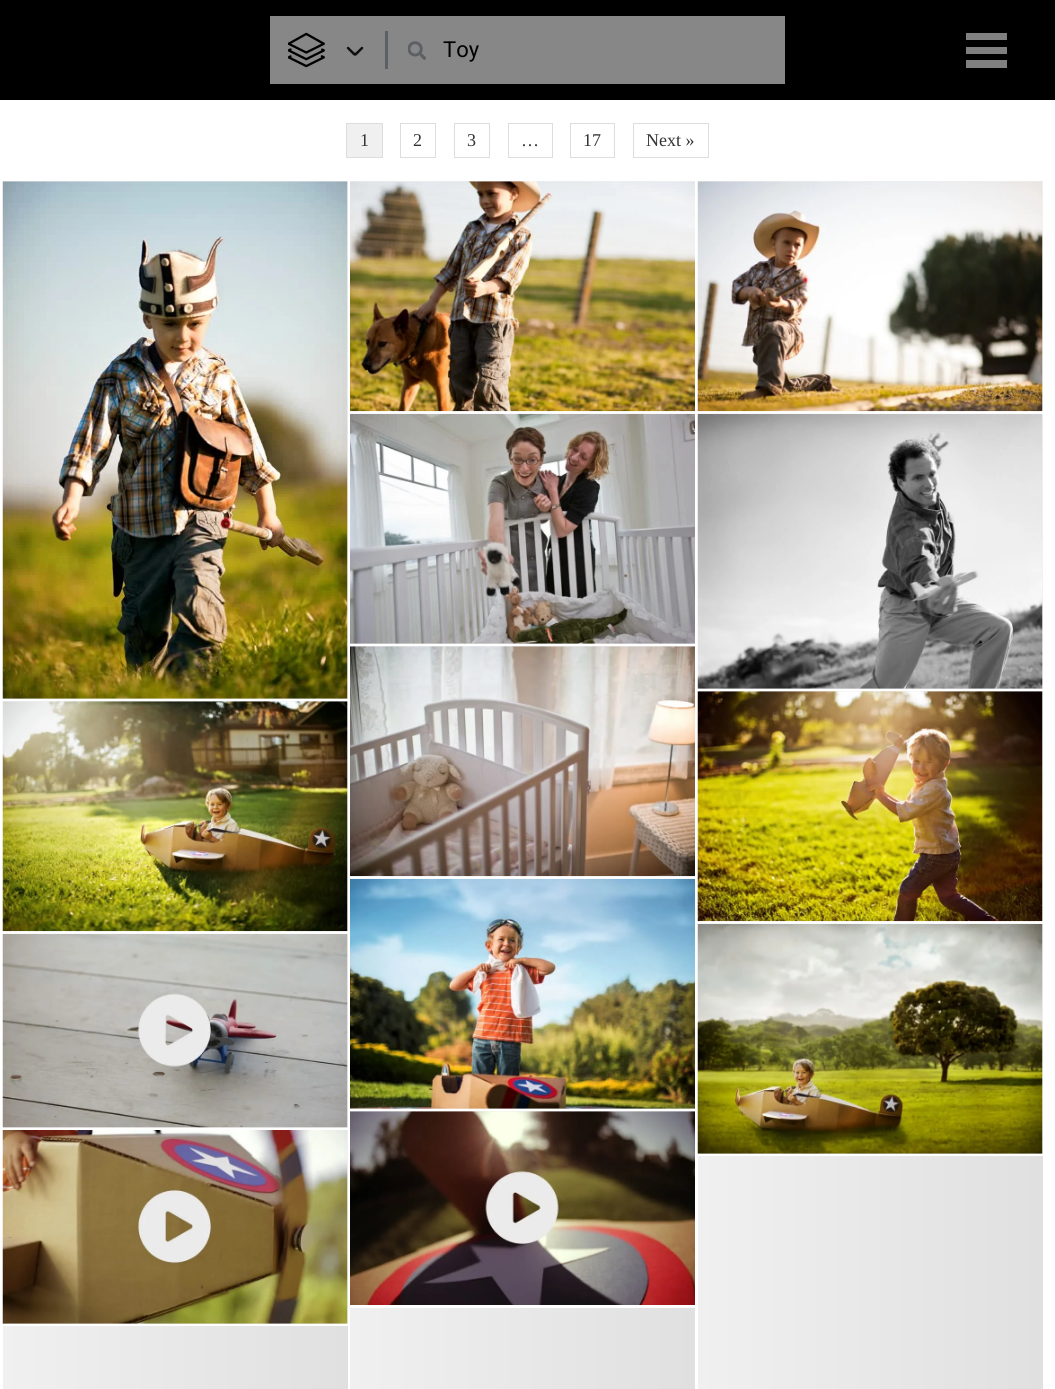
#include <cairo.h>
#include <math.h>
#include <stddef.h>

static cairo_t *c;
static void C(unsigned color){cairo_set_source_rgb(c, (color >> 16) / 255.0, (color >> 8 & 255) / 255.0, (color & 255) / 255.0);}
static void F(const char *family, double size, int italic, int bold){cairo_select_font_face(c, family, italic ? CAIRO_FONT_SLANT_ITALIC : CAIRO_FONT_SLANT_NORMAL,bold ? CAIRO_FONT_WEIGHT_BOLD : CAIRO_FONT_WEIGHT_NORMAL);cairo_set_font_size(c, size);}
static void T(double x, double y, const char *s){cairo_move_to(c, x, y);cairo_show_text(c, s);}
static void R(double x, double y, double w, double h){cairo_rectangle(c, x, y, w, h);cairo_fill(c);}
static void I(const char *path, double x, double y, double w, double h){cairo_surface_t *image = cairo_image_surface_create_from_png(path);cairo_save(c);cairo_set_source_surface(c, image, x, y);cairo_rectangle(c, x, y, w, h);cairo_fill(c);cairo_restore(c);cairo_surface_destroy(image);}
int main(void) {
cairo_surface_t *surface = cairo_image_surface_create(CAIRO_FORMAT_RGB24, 1055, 1389);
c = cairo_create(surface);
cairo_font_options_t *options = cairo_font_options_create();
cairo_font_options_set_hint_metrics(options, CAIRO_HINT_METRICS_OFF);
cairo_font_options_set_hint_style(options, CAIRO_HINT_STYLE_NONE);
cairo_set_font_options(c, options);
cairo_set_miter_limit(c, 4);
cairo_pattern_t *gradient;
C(0xffffff);
cairo_paint(c);
C(0x000000);
R(0,0,1055,100);
C(0x878787);
R(270,16,515,68);
I("1.png",288,32,37,36);
I("2.png",346,46,18,10);
C(0x5c5f63);
R(385,31,3,38);
I("3.png",408,41,18,19);
F("Roboto",22,0,0);
C(0x000000);
T(443,57,"Toy");
C(0x808080);
cairo_new_path(c);
cairo_move_to(c,966,33);
cairo_line_to(c,1007,33);
cairo_line_to(c,1007,40);
cairo_line_to(c,966,40);
cairo_close_path(c);
cairo_move_to(c,966,47);
cairo_line_to(c,1007,47);
cairo_line_to(c,1007,54);
cairo_line_to(c,966,54);
cairo_close_path(c);
cairo_move_to(c,966,60);
cairo_line_to(c,1007,60);
cairo_line_to(c,1007,68);
cairo_line_to(c,966,68);
cairo_close_path(c);
cairo_fill(c);
C(0xf0f0f0);
cairo_rectangle(c,346.5,123.5,36,34);
cairo_fill_preserve(c);
C(0xdddddd);
cairo_set_line_width(c,1);
cairo_stroke(c);
F("Liberation Serif",18,0,0);
C(0x333333);
T(360,146,"1");
cairo_rectangle(c,400.5,123.5,35,34);
C(0xdddddd);
cairo_stroke(c);
C(0x333333);
T(413,146,"2");
cairo_rectangle(c,454.5,123.5,35,34);
C(0xdddddd);
cairo_stroke(c);
C(0x333333);
T(467,146,"3");
cairo_rectangle(c,508.5,123.5,44,34);
C(0xdddddd);
cairo_stroke(c);
C(0x333333);
T(521,146,"…");
cairo_rectangle(c,570.5,123.5,44,34);
C(0xdddddd);
cairo_stroke(c);
C(0x333333);
T(583,146,"17");
cairo_rectangle(c,633.5,123.5,75,34);
C(0xdddddd);
cairo_stroke(c);
C(0x333333);
T(646,146,"Next »");
C(0xf0f0f0);
R(3,181,345,518);
I("4.png",2,181,346,518);
R(350,181,345,1);
I("5.png",350,181,345,231);
R(698,181,345,230);
I("6.png",697,181,346,231);
R(350,643,345,1);
I("7.png",350,413,345,231);
R(698,414,345,275);
I("8.png",697,413,346,276);
R(3,701,345,230);
I("9.png",2,701,346,231);
R(350,646,345,1);
I("10.png",350,646,345,231);
R(698,691,345,230);
I("11.png",697,691,346,231);
R(3,934,345,194);
I("12.png",2,933,346,195);
R(350,1108,345,1);
I("13.png",350,878,345,231);
R(698,924,345,230);
I("14.png",697,923,346,231);
R(3,1130,345,194);
I("15.png",2,1130,346,194);
R(350,1111,345,1);
I("16.png",350,1111,345,194);
gradient = cairo_pattern_create_linear(698,1329,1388,1329);
cairo_pattern_add_color_stop_rgba(gradient,0,0.941,0.941,0.941,1);
cairo_pattern_add_color_stop_rgba(gradient,.5,0.878,0.878,0.878,1);
cairo_pattern_add_color_stop_rgba(gradient,1,0.941,0.941,0.941,1);
cairo_set_source(c,gradient);
cairo_pattern_destroy(gradient);
R(698,1156,345,233);
gradient = cairo_pattern_create_linear(2.5,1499,693,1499);
cairo_pattern_add_color_stop_rgba(gradient,0,0.941,0.941,0.941,1);
cairo_pattern_add_color_stop_rgba(gradient,.5,0.878,0.878,0.878,1);
cairo_pattern_add_color_stop_rgba(gradient,1,0.941,0.941,0.941,1);
cairo_set_source(c,gradient);
cairo_pattern_destroy(gradient);
R(3,1326,345,63);
gradient = cairo_pattern_create_linear(350,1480,1040,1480);
cairo_pattern_add_color_stop_rgba(gradient,0,0.941,0.941,0.941,1);
cairo_pattern_add_color_stop_rgba(gradient,.5,0.878,0.878,0.878,1);
cairo_pattern_add_color_stop_rgba(gradient,1,0.941,0.941,0.941,1);
cairo_set_source(c,gradient);
cairo_pattern_destroy(gradient);
R(350,1308,345,81);
cairo_surface_write_to_png(surface, "o.png");
cairo_font_options_destroy(options);
cairo_destroy(c);
cairo_surface_destroy(surface);
return 0;
}
